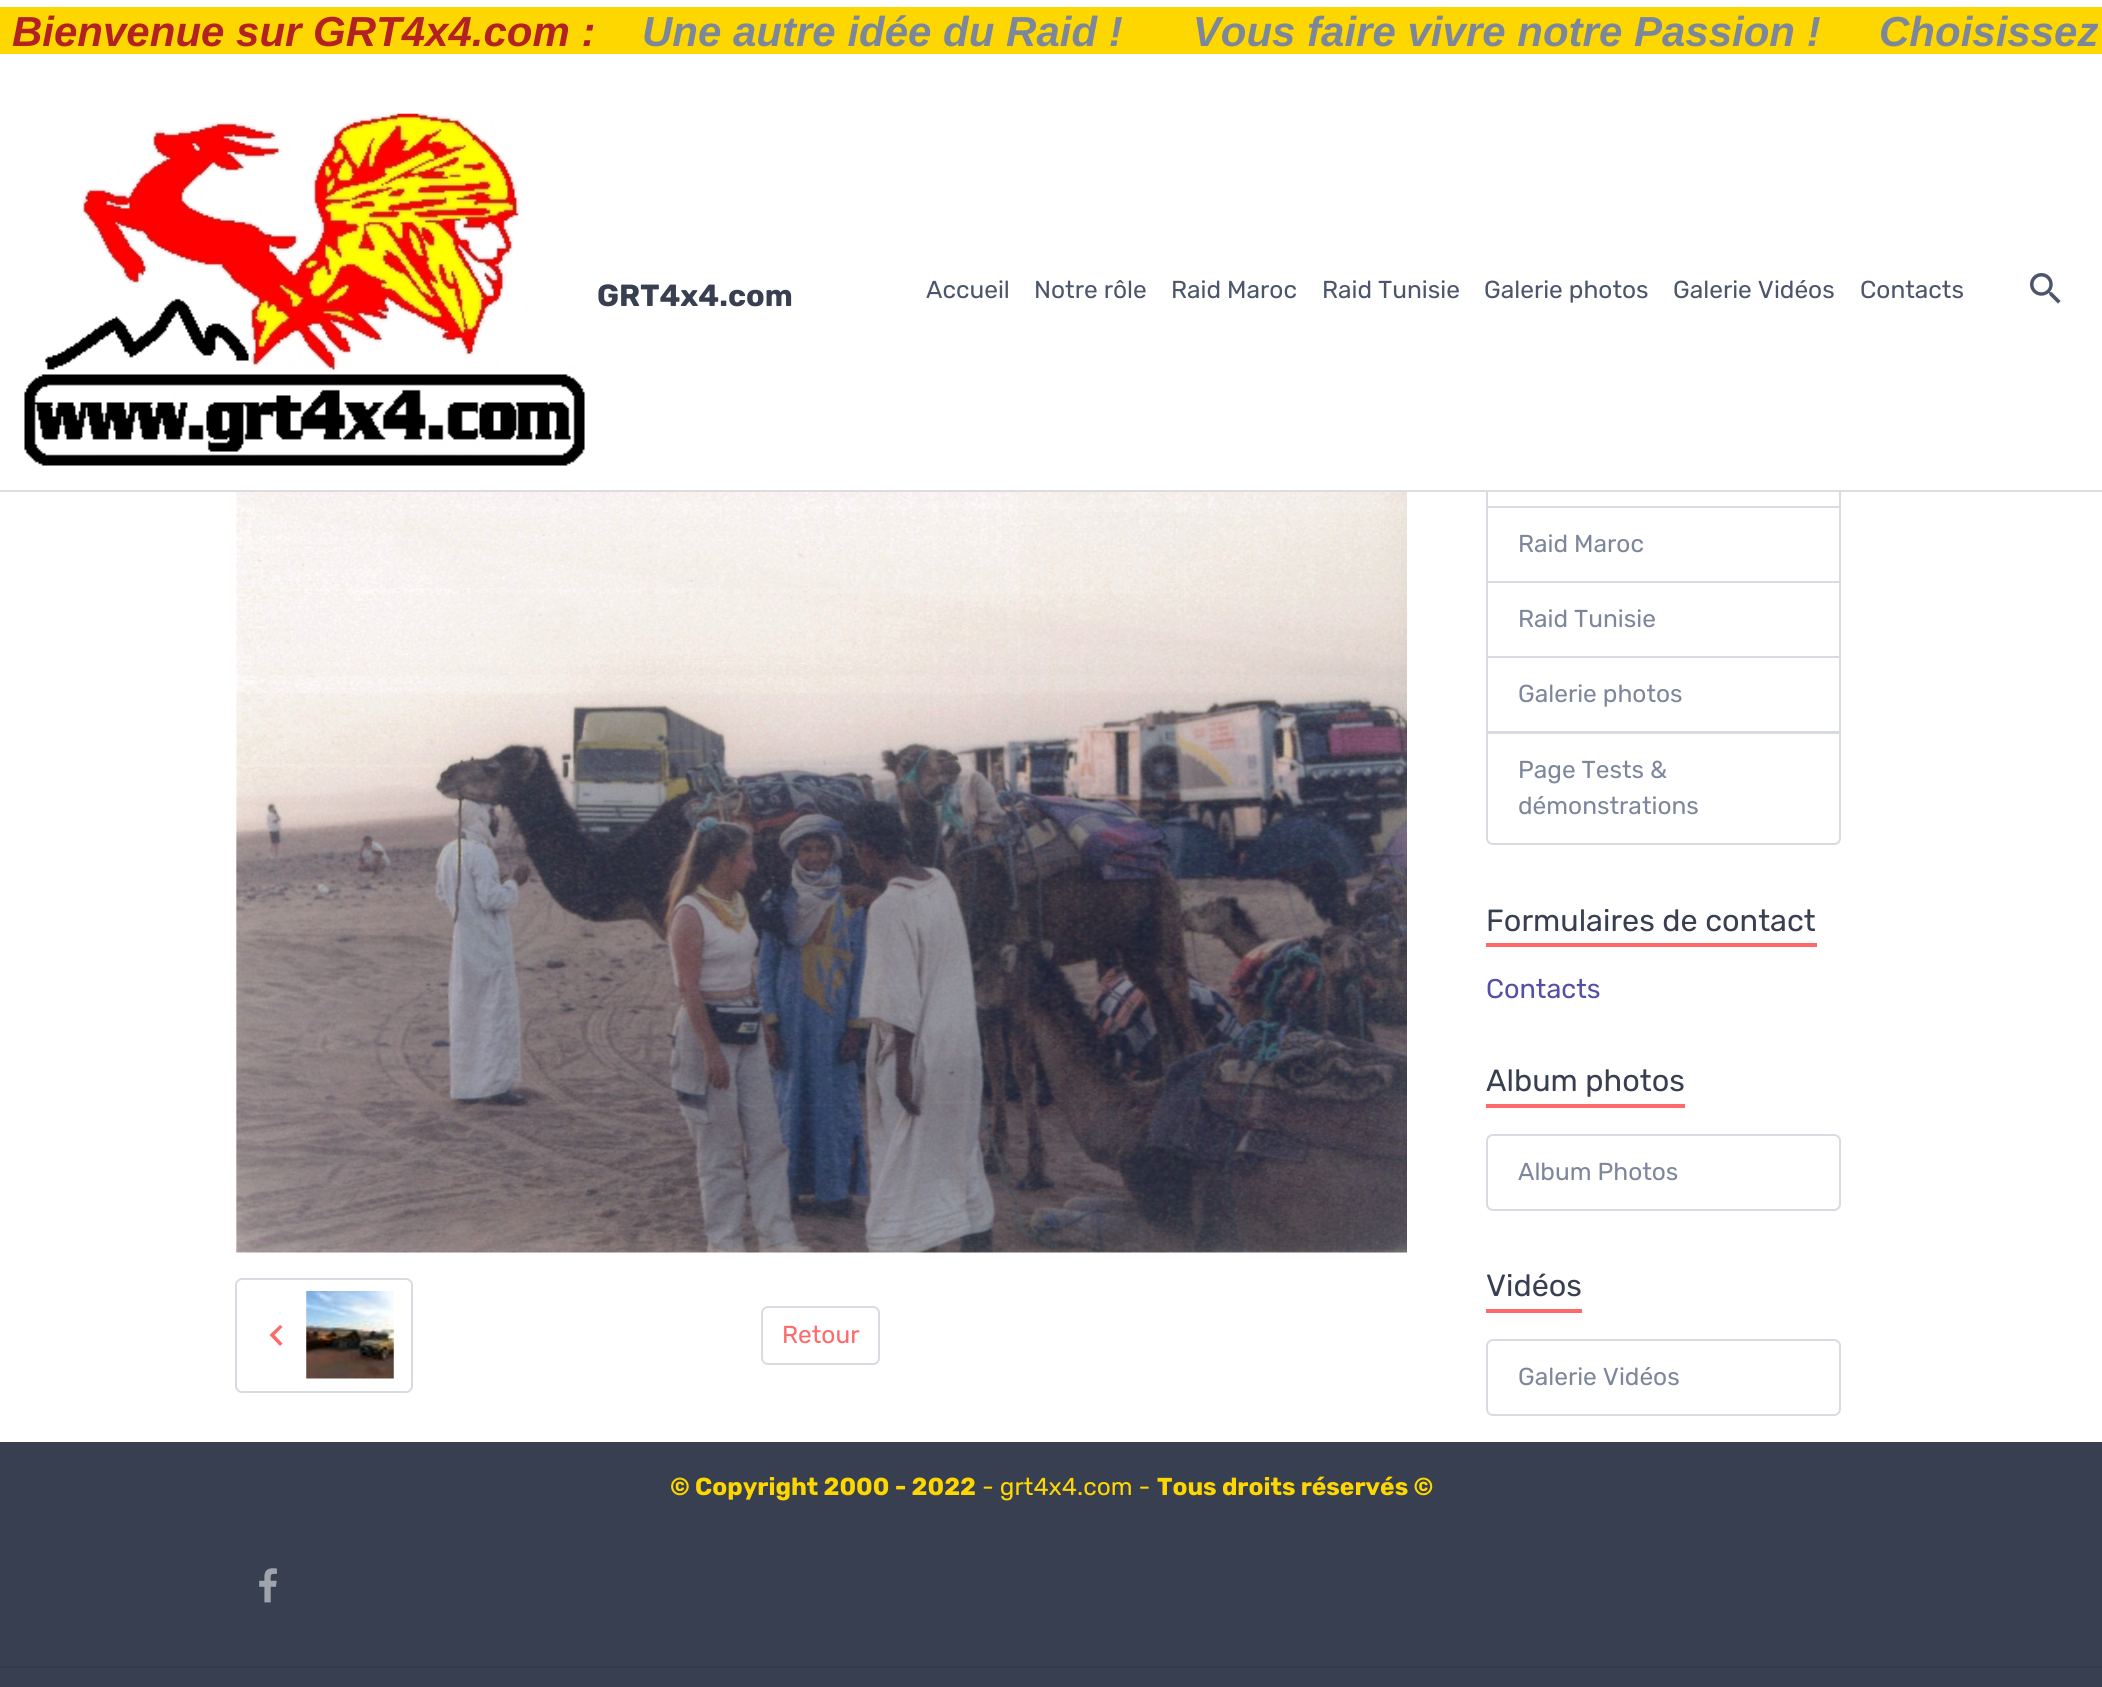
#include <cairo.h>
#include <math.h>
#include <stddef.h>

static cairo_t *c;
static void C(unsigned color){cairo_set_source_rgb(c, (color >> 16) / 255.0, (color >> 8 & 255) / 255.0, (color & 255) / 255.0);}
static void F(const char *family, double size, int italic, int bold){cairo_select_font_face(c, family, italic ? CAIRO_FONT_SLANT_ITALIC : CAIRO_FONT_SLANT_NORMAL,bold ? CAIRO_FONT_WEIGHT_BOLD : CAIRO_FONT_WEIGHT_NORMAL);cairo_set_font_size(c, size);}
static void T(double x, double y, const char *s){cairo_move_to(c, x, y);cairo_show_text(c, s);}
static void R(double x, double y, double w, double h){cairo_rectangle(c, x, y, w, h);cairo_fill(c);}
static void Q(double x, double y, double w, double h, double r){cairo_new_sub_path(c);cairo_arc(c, x + w - r, y + h - r, r, 0, M_PI / 2);cairo_arc(c, x + r, y + h - r, r, M_PI / 2, M_PI);cairo_arc(c, x + r, y + r, r, M_PI, 1.5 * M_PI);cairo_arc(c, x + w - r, y + r, r, 1.5 * M_PI, 2 * M_PI);cairo_close_path(c);}
static void I(const char *path, double x, double y, double w, double h){cairo_surface_t *image = cairo_image_surface_create_from_png(path);cairo_save(c);cairo_set_source_surface(c, image, x, y);cairo_rectangle(c, x, y, w, h);cairo_fill(c);cairo_restore(c);cairo_surface_destroy(image);}
int main(void) {
cairo_surface_t *surface = cairo_image_surface_create(CAIRO_FORMAT_RGB24, 2102, 1687);
c = cairo_create(surface);
cairo_font_options_t *options = cairo_font_options_create();
cairo_font_options_set_hint_metrics(options, CAIRO_HINT_METRICS_OFF);
cairo_font_options_set_hint_style(options, CAIRO_HINT_STYLE_NONE);
cairo_set_font_options(c, options);
cairo_set_miter_limit(c, 4);
C(0xffffff);
cairo_paint(c);
C(0xffd700);
R(0,7,2102,47);
F("Liberation Sans",42,1,1);
C(0xb22222);
T(12,46,"Bienvenue sur GRT4x4.com :");
C(0x7d879c);
T(642,46,"Une autre idée du Raid !      Vous faire vivre notre Passion !     Choisissez");
cairo_rectangle(c,1487,432,353,75);
C(0xd8dbe1);
cairo_stroke(c);
C(0xffffff);
R(1486,431,355,59);
C(0xdbdde1);
R(0,490,2102,2);
I("1.png",24,113,561,353);
F("Rubik",30.6,0,1);
C(0x373f50);
T(597,306,"GRT4x4.com");
F("Rubik",24.5,0,0);
C(0x4b566b);
T(926,298,"Accueil");
T(1034,298,"Notre rôle");
T(1171,298,"Raid Maroc");
T(1322,298,"Raid Tunisie");
T(1484,298,"Galerie photos");
T(1673,298,"Galerie Vidéos");
T(1860,298,"Contacts");
I("2.png",2030,273,31,31);
I("3.png",236,492,1171,761);
Q(236,1279,176,113,6);
C(0xd8dbe1);
cairo_stroke(c);
C(0xfe696a);
cairo_new_path(c);
cairo_move_to(c,282.5,1327);
cairo_line_to(c,274.5,1335);
cairo_line_to(c,282.5,1343.5);
cairo_line_to(c,280,1346);
cairo_line_to(c,269.5,1335);
cairo_line_to(c,280,1325);
cairo_close_path(c);
cairo_fill(c);
I("4.png",306,1291,88,88);
Q(762,1307,117,57,6);
C(0xd8dbe1);
cairo_stroke(c);
C(0xfe696a);
T(782,1343,"Retour");
cairo_rectangle(c,1487,507,353,75);
C(0xd8dbe1);
cairo_stroke(c);
C(0x7d879c);
T(1518,552,"Raid Maroc");
cairo_rectangle(c,1487,582,353,75);
C(0xd8dbe1);
cairo_stroke(c);
C(0x7d879c);
T(1518,627,"Raid Tunisie");
cairo_rectangle(c,1487,657,353,75);
C(0xd8dbe1);
cairo_stroke(c);
C(0x7d879c);
T(1518,702,"Galerie photos");
cairo_new_path(c);
cairo_move_to(c,1487,733);
cairo_line_to(c,1840,733);
cairo_line_to(c,1840,838);
cairo_curve_to(c,1840,841.5,1837.5,844,1834,844);
cairo_line_to(c,1493,844);
cairo_curve_to(c,1489.5,844,1487,841.5,1487,838);
cairo_close_path(c);
C(0xd8dbe1);
cairo_stroke(c);
C(0x7d879c);
T(1518,778,"Page Tests &");
T(1518,814,"démonstrations");
C(0xfe696a);
R(1486,943,331,4);
F("Rubik",30.6,0,0);
C(0x373f50);
T(1486,931,"Formulaires de contact");
F("Rubik",27,0,0);
C(0x544fa7);
T(1486,998,"Contacts");
C(0xfe696a);
R(1486,1104,199,4);
F("Rubik",30.6,0,0);
C(0x373f50);
T(1486,1091,"Album photos");
Q(1487,1135,353,75,6);
C(0xd8dbe1);
cairo_stroke(c);
F("Rubik",24.5,0,0);
C(0x7d879c);
T(1518,1180,"Album Photos");
C(0xfe696a);
R(1486,1309,96,4);
F("Rubik",30.6,0,0);
C(0x373f50);
T(1486,1296,"Vidéos");
Q(1487,1340,353,75,6);
C(0xd8dbe1);
cairo_stroke(c);
F("Rubik",24.5,0,0);
C(0x7d879c);
T(1518,1385,"Galerie Vidéos");
C(0x373f50);
R(0,1442,2102,245);
F("Rubik",24.5,0,1);
C(0xffd700);
T(670,1495,"© Copyright 2000 - 2022");
F("Rubik",24.5,0,0);
T(982,1495,"- grt4x4.com -");
F("Rubik",24.5,0,1);
T(1157,1495,"Tous droits réservés ©");
I("5.png",259,1568,18,35);
C(0x323948);
R(0,1666,2102,2);
cairo_surface_write_to_png(surface, "o.png");
cairo_font_options_destroy(options);
cairo_destroy(c);
cairo_surface_destroy(surface);
return 0;
}
